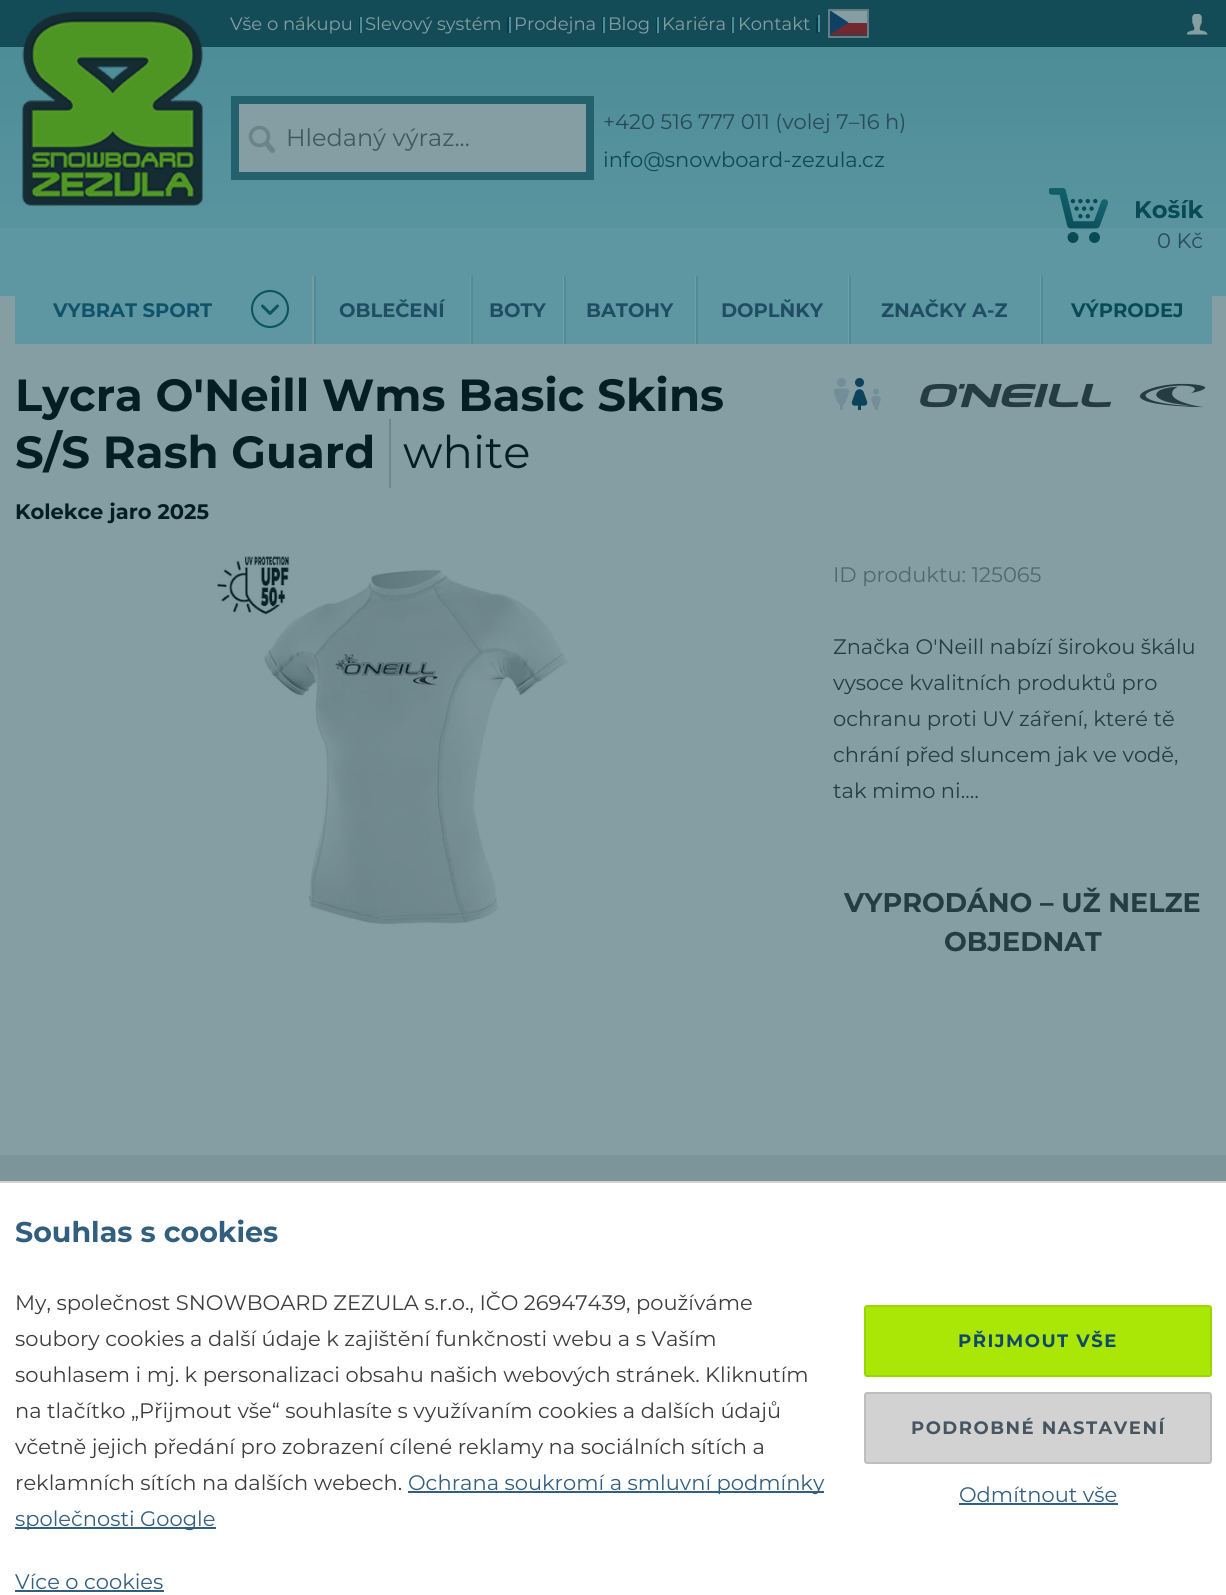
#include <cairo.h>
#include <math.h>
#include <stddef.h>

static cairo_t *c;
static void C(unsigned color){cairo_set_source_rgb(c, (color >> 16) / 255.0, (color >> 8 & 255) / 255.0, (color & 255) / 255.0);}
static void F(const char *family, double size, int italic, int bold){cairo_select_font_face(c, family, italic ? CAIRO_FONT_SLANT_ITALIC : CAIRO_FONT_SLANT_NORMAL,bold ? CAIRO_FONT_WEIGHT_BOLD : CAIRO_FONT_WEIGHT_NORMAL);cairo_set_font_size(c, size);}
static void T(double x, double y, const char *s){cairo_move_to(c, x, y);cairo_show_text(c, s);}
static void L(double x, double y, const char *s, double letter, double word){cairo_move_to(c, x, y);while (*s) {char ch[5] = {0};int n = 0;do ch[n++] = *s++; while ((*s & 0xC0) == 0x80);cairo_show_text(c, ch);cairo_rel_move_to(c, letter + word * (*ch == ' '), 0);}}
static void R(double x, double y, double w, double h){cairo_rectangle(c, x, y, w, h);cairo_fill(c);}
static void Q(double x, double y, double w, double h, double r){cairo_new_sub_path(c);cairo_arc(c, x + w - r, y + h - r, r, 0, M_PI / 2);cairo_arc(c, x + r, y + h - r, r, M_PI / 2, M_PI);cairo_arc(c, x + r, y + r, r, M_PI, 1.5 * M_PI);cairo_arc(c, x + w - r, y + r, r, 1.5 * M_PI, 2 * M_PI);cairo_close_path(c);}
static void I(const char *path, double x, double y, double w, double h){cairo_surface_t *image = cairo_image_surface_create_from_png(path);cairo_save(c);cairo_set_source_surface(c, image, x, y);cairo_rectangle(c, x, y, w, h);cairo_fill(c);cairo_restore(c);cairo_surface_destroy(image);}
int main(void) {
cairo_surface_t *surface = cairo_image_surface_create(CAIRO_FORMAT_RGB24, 1226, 1595);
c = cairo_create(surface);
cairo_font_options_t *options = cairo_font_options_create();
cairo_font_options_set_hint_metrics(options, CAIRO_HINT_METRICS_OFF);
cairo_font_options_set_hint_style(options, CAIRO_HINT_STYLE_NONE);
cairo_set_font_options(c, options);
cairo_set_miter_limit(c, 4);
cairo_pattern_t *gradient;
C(0x859ea4);
cairo_paint(c);
gradient = cairo_pattern_create_linear(614,0,614,296);
cairo_pattern_add_color_stop_rgba(gradient,0,0.075,0.294,0.337,1);
cairo_pattern_add_color_stop_rgba(gradient,.16,0.075,0.294,0.337,1);
cairo_pattern_add_color_stop_rgba(gradient,.16,0.298,0.553,0.596,1);
cairo_pattern_add_color_stop_rgba(gradient,1,0.369,0.592,0.631,1);
cairo_set_source(c,gradient);
cairo_pattern_destroy(gradient);
R(0,0,1226,228);
F("Montserrat",18,0,0);
C(0x859ea4);
T(230,30,"Vše o nákupu");
C(0x0a3c48);
R(359,17,1,16);
C(0x4c8d98);
R(360,17,2,16);
C(0x859ea4);
T(365,30,"Slevový systém");
C(0x0a3c48);
R(507,17,2,16);
C(0x4c8d98);
R(509,17,2,16);
C(0x859ea4);
T(514,30,"Prodejna");
C(0x0a3c48);
R(602,17,1,16);
C(0x4c8d98);
R(603,17,2,16);
C(0x859ea4);
T(608,30,"Blog");
C(0x0a3c48);
R(656,17,1,16);
C(0x4c8d98);
R(657,17,2,16);
C(0x859ea4);
T(662,30,"Kariéra");
C(0x0a3c48);
R(731,17,1,16);
C(0x4c8d98);
R(732,17,2,16);
C(0x859ea4);
T(738,30,"Kontakt");
C(0x0a3c48);
R(816,17,2,16);
C(0x4c8d98);
R(818,15,2,17);
cairo_rectangle(c,829,10,39,27);
C(0x657e84);
cairo_stroke(c);
C(0x712831);
R(830,23,37,12);
C(0x859ea4);
R(831,11,36,12);
cairo_save(c);
cairo_rectangle(c,830,11,37,25);
cairo_clip(c);
C(0x0e4163);
cairo_new_path(c);
cairo_move_to(c,848.5,22.5);
cairo_line_to(c,829.5,10);
cairo_line_to(c,829.5,35);
cairo_close_path(c);
cairo_fill(c);
cairo_restore(c);
I("1.png",1187,14,21,21);
I("2.png",22,12,181,194);
cairo_rectangle(c,235,100,355,76);
cairo_fill_preserve(c);
C(0x23616c);
cairo_set_line_width(c,8);
cairo_stroke(c);
cairo_arc(c,259.5,136.5,9,0,2 * M_PI);
C(0x6b848a);
cairo_set_line_width(c,3.7);
cairo_stroke(c);
cairo_new_path(c);
cairo_move_to(c,272.5,150.5);
cairo_line_to(c,267.5,144.5);
cairo_set_line_width(c,5.2);
cairo_set_line_cap(c,CAIRO_LINE_CAP_ROUND);
cairo_stroke(c);
F("Montserrat",24,0,0);
C(0x40595f);
T(286,146,"Hledaný výraz...");
F("Montserrat",21,0,0);
C(0x294955);
T(603,129,"+420 516 777 011 (volej 7–16 h)");
C(0x094b55);
T(603,167,"info@snowboard-zezula.cz");
C(0x5e97a1);
R(0,228,1226,68);
I("3.png",1049,188,59,55);
F("Montserrat",24,0,1);
C(0x094b55);
T(1134,218,"Košík");
F("Montserrat",21,0,0);
C(0x294955);
T(1157,248,"0 Kč");
C(0x5e97a1);
R(15,296,1197,48);
C(0x789ba2);
R(312,276,2,68);
F("Montserrat",19.5,0,1);
C(0x10526a);
T(53,317,"VYBRAT SPORT");
cairo_new_path(c);
cairo_move_to(c,277.5,306);
cairo_line_to(c,270,313.5);
cairo_line_to(c,262.5,306);
C(0x0d5660);
cairo_set_line_width(c,3);
cairo_set_line_join(c,CAIRO_LINE_JOIN_ROUND);
cairo_stroke(c);
cairo_arc(c,270,309,18,0,2 * M_PI);
C(0x0a5660);
cairo_set_line_width(c,2.1);
cairo_set_line_cap(c,CAIRO_LINE_CAP_BUTT);
cairo_set_line_join(c,CAIRO_LINE_JOIN_MITER);
cairo_stroke(c);
C(0x789ba2);
R(470,276,1,68);
C(0x4c8d98);
R(314,276,2,68);
C(0x1f4e64);
T(339,317,"OBLEČENÍ");
C(0x789ba2);
R(563,276,1,68);
C(0x4c8d98);
R(471,276,2,68);
C(0x1f4e64);
T(489,317,"BOTY");
C(0x789ba2);
R(695,276,1,68);
C(0x4c8d98);
R(564,276,2,68);
C(0x1f4e64);
T(586,317,"BATOHY");
C(0x789ba2);
R(848,276,1,68);
C(0x4c8d98);
R(696,276,2,68);
C(0x1f4e64);
T(721,317,"DOPLŇKY");
C(0x789ba2);
R(1040,276,1,68);
C(0x4c8d98);
R(849,276,2,68);
C(0x1f4e64);
T(881,317,"ZNAČKY A-Z");
C(0x4c8d98);
R(1041,276,2,68);
C(0x094b55);
T(1071,317,"VÝPRODEJ");
F("Montserrat",45,0,1);
C(0x051e24);
T(15,411,"Lycra O'Neill Wms Basic Skins");
T(15,468,"S/S Rash Guard");
C(0x6e878d);
R(389,419,2,69);
F("Montserrat",45,0,0);
C(0x051e24);
T(403,468,"white");
F("Montserrat",21,0,1);
T(15,519,"Kolekce jaro 2025");
I("4.png",833,378,48,32);
I("5.png",920,383,286,25);
I("6.png",217,556,351,369);
F("Montserrat",21,0,0);
C(0x4f686e);
T(833,582,"ID produktu: 125065");
C(0x243d43);
T(833,654,"Značka O'Neill nabízí širokou škálu");
T(833,690,"vysoce kvalitních produktů pro");
T(833,726,"ochranu proti UV záření, které tě");
T(833,762,"chrání před sluncem jak ve vodě,");
T(833,798,"tak mimo ni.…");
F("Montserrat",27,0,1);
T(844,912,"VYPRODÁNO – UŽ NELZE");
T(944,951,"OBJEDNAT");
C(0x7c959b);
R(0,1155,1226,26);
C(0xffffff);
R(0,1183,1226,412);
C(0xd2d2d2);
R(0,1181,1226,2);
F("Montserrat",28.5,0,1);
C(0x335f7f);
T(15,1242,"Souhlas s cookies");
F("Montserrat",21,0,0);
C(0x3d3d3d);
T(15,1310,"My, společnost SNOWBOARD ZEZULA s.r.o., IČO 26947439, používáme");
T(15,1346,"soubory cookies a další údaje k zajištění funkčnosti webu a s Vaším");
T(15,1382,"souhlasem i mj. k personalizaci obsahu našich webových stránek. Kliknutím");
T(15,1418,"na tlačítko „Přijmout vše“ souhlasíte s využívaním cookies a dalších údajů");
T(15,1454,"včetně jejich předání pro zobrazení cílené reklamy na sociálních sítích a");
T(15,1490,"reklamních sítích na dalších webech.");
C(0x335f7f);
R(408,1491,416,2);
T(408,1490,"Ochrana soukromí a smluvní podmínky");
R(15,1527,201,2);
T(15,1526,"společnosti Google");
T(15,1589,"Více o cookies");
R(15,1590,149,2);
C(0xaae707);
Q(865,1306,346,70,2);
cairo_fill_preserve(c);
C(0x9cd601);
cairo_set_line_width(c,2);
cairo_stroke(c);
F("Montserrat",18,0,1);
C(0x0e496d);
L(958,1347,"PŘIJMOUT VŠE",1.5,0);
C(0xd2d2d2);
Q(865,1393,346,70,2);
cairo_fill_preserve(c);
C(0xbfbfbf);
cairo_stroke(c);
C(0x485561);
L(911,1434,"PODROBNÉ NASTAVENÍ",1.5,0);
F("Montserrat",21,0,0);
C(0x335f7f);
T(959,1502,"Odmítnout vše");
R(959,1503,159,2);
cairo_surface_write_to_png(surface, "o.png");
cairo_font_options_destroy(options);
cairo_destroy(c);
cairo_surface_destroy(surface);
return 0;
}
